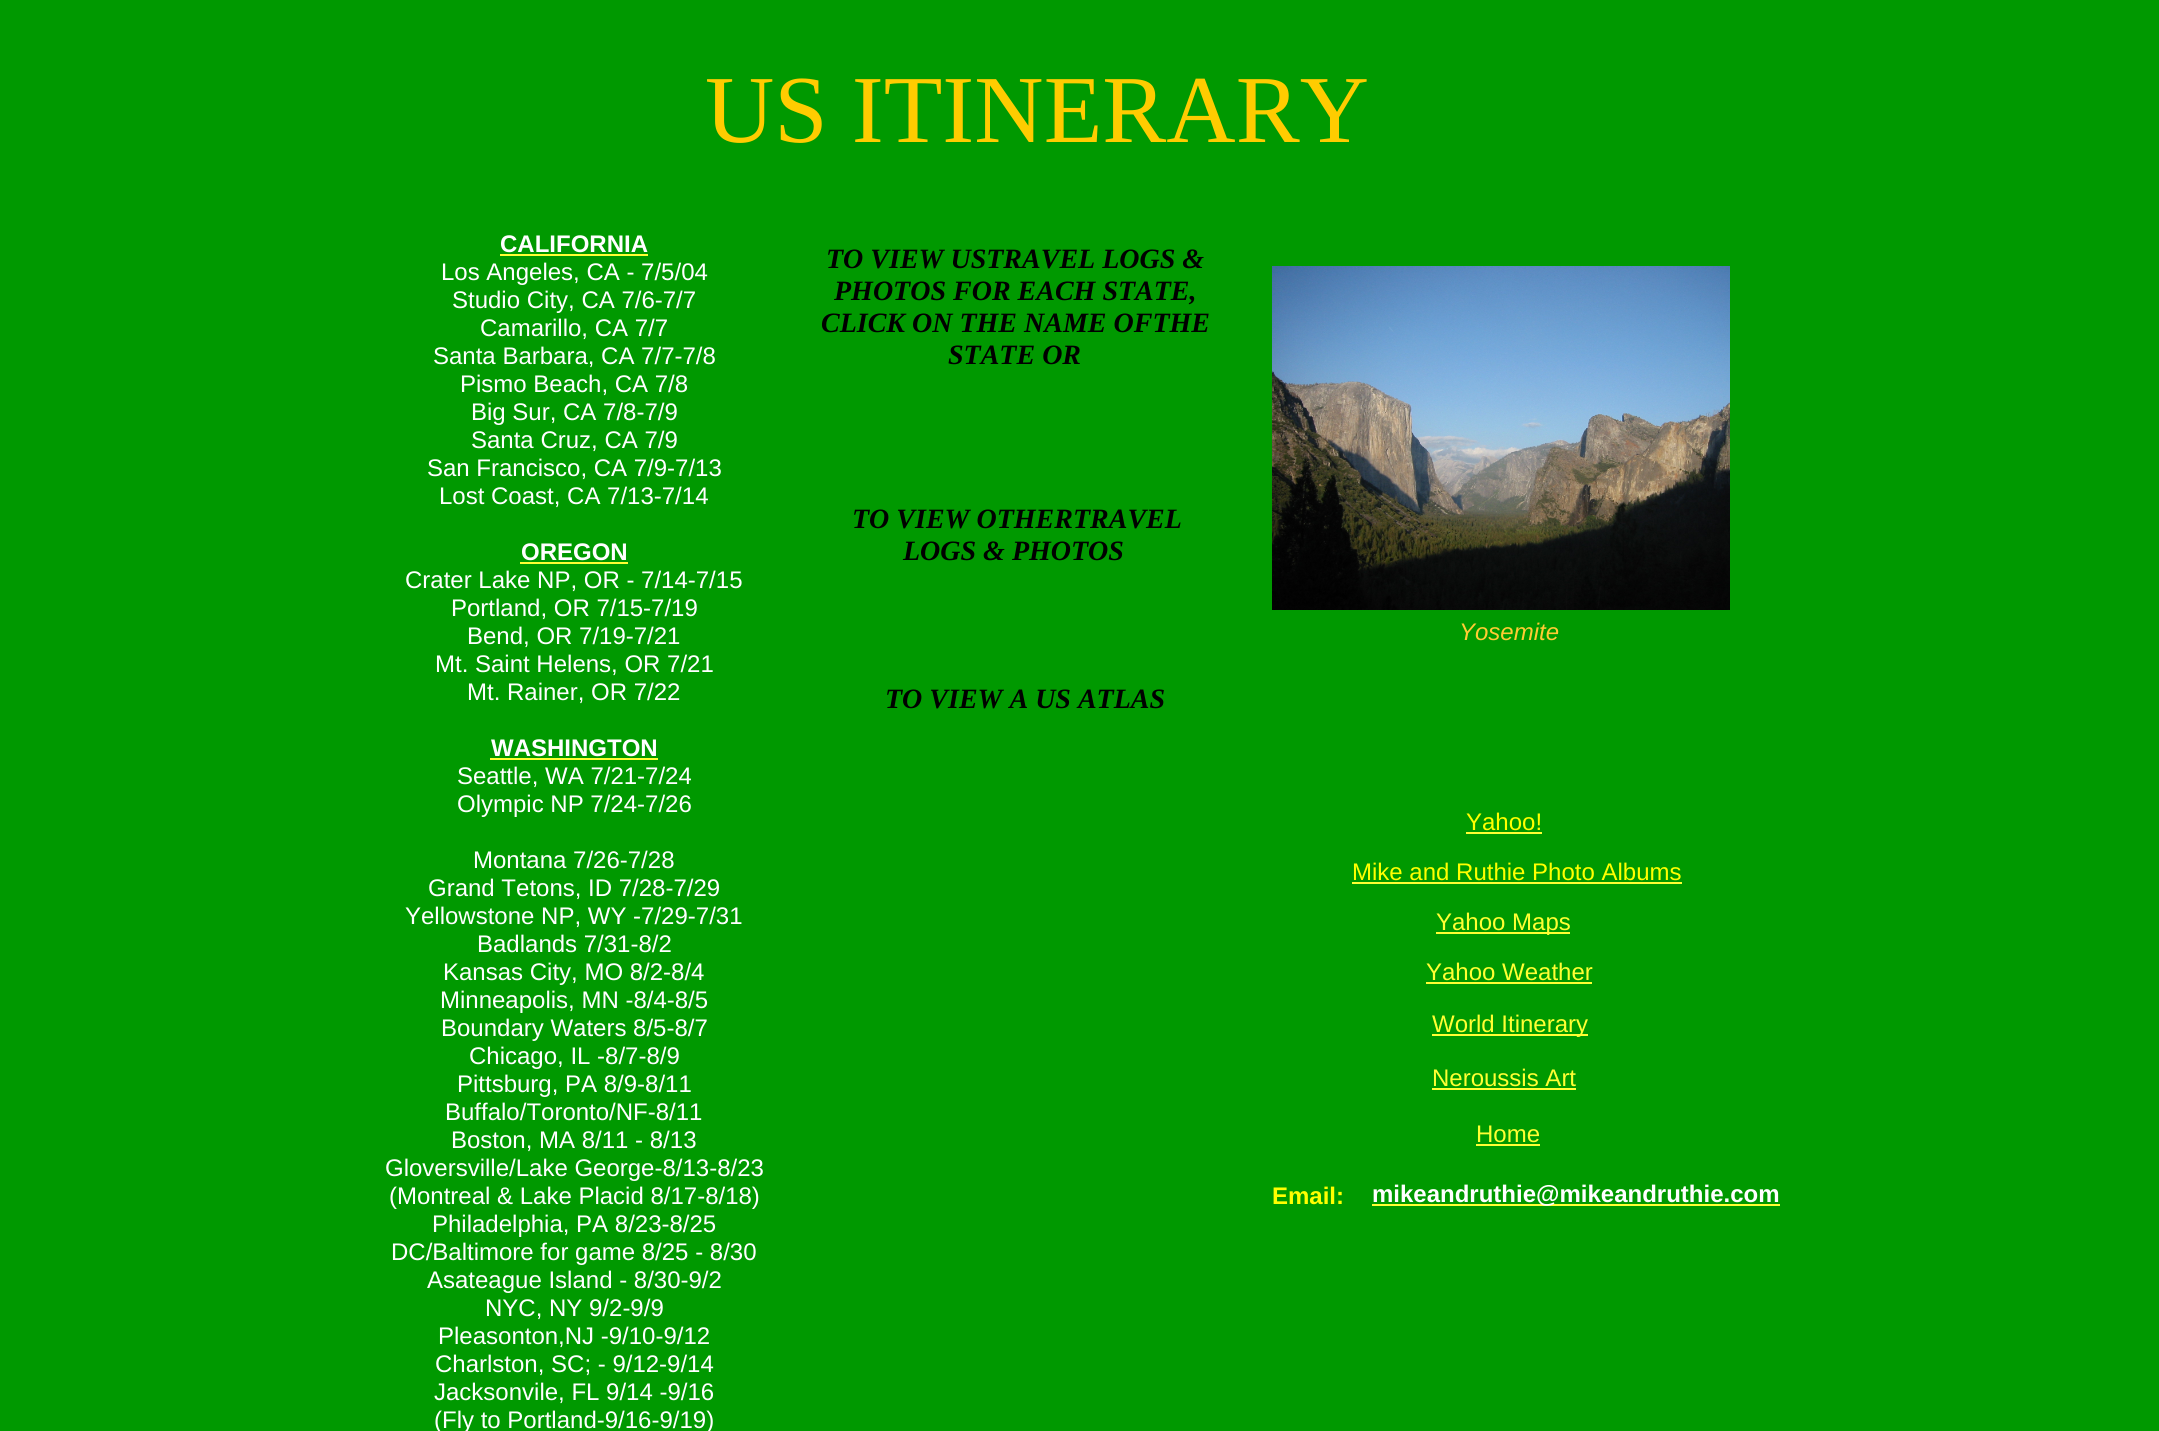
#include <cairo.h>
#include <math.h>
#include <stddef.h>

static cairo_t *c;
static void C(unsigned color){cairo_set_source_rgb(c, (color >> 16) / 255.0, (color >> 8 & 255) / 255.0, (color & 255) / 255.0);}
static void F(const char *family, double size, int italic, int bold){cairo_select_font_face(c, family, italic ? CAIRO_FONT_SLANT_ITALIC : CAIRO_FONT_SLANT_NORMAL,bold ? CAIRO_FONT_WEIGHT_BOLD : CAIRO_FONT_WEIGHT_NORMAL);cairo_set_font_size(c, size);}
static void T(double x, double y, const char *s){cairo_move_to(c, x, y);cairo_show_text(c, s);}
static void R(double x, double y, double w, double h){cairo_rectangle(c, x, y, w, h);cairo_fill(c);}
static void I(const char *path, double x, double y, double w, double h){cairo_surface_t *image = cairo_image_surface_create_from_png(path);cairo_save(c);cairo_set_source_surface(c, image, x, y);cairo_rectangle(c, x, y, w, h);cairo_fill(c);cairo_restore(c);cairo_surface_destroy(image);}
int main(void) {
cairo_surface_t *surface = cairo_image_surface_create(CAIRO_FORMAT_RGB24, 2159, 1431);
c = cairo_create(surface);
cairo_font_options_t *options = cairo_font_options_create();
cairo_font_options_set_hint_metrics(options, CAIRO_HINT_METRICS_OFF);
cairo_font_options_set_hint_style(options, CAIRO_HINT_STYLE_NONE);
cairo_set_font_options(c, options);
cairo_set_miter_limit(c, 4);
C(0x009900);
cairo_paint(c);
F("Liberation Serif",96,0,0);
C(0xffcc00);
T(705,142,"US ITINERARY");
F("Liberation Sans",24,0,1);
C(0xffffff);
T(500,252,"CALIFORNIA");
C(0xffff33);
R(500,254,148,2);
F("Liberation Sans",24,0,0);
C(0xffffff);
T(441,280,"Los Angeles, CA - 7/5/04");
T(452,308,"Studio City, CA 7/6-7/7");
T(480,336,"Camarillo, CA 7/7");
T(433,364,"Santa Barbara, CA 7/7-7/8");
T(460,392,"Pismo Beach, CA 7/8");
T(471,420,"Big Sur, CA 7/8-7/9");
T(471,448,"Santa Cruz, CA 7/9");
T(427,476,"San Francisco, CA 7/9-7/13");
T(439,504,"Lost Coast, CA 7/13-7/14");
F("Liberation Sans",24,0,1);
T(521,560,"OREGON");
C(0xffff33);
R(520,562,108,2);
F("Liberation Sans",24,0,0);
C(0xffffff);
T(405,588,"Crater Lake NP, OR - 7/14-7/15");
T(451,616,"Portland, OR 7/15-7/19");
T(467,644,"Bend, OR 7/19-7/21");
T(435,672,"Mt. Saint Helens, OR 7/21");
T(467,700,"Mt. Rainer, OR 7/22");
F("Liberation Sans",24,0,1);
T(491,756,"WASHINGTON");
C(0xffff33);
R(490,758,168,2);
F("Liberation Sans",24,0,0);
C(0xffffff);
T(457,784,"Seattle, WA 7/21-7/24");
T(457,812,"Olympic NP 7/24-7/26");
T(473,868,"Montana 7/26-7/28");
T(428,896,"Grand Tetons, ID 7/28-7/29");
T(405,924,"Yellowstone NP, WY -7/29-7/31");
T(477,952,"Badlands 7/31-8/2");
T(443,980,"Kansas City, MO 8/2-8/4");
T(440,1008,"Minneapolis, MN -8/4-8/5");
T(441,1036,"Boundary Waters 8/5-8/7");
T(469,1064,"Chicago, IL -8/7-8/9");
T(457,1092,"Pittsburg, PA 8/9-8/11");
T(445,1120,"Buffalo/Toronto/NF-8/11");
T(451,1148,"Boston, MA 8/11 - 8/13");
T(385,1176,"Gloversville/Lake George-8/13-8/23");
T(389,1204,"(Montreal & Lake Placid 8/17-8/18)");
T(432,1232,"Philadelphia, PA 8/23-8/25");
T(391,1260,"DC/Baltimore for game 8/25 - 8/30");
T(427,1288,"Asateague Island - 8/30-9/2");
T(485,1316,"NYC, NY 9/2-9/9");
T(438,1344,"Pleasonton,NJ -9/10-9/12");
T(435,1372,"Charlston, SC; - 9/12-9/14");
T(434,1400,"Jacksonvile, FL 9/14 -9/16");
T(434,1428,"(Fly to Portland-9/16-9/19)");
F("Liberation Serif",28,1,1);
C(0x000000);
T(826,268,"TO VIEW USTRAVEL LOGS &");
T(834,300,"PHOTOS FOR EACH STATE,");
T(821,332,"CLICK ON THE NAME OFTHE");
T(948,364,"STATE OR");
I("1.png",1272,266,458,344);
T(852,528,"TO VIEW OTHERTRAVEL");
T(903,560,"LOGS & PHOTOS");
F("Liberation Sans",24,1,0);
C(0xffcc33);
T(1459,640,"Yosemite");
F("Liberation Serif",28,1,1);
C(0x000000);
T(885,708,"TO VIEW A US ATLAS");
F("Liberation Sans",24,0,0);
C(0xffff00);
T(1466,830,"Yahoo!");
C(0xffff33);
R(1466,832,76,2);
C(0xffff00);
T(1352,880,"Mike and Ruthie Photo Albums");
C(0xffff33);
R(1352,882,330,2);
R(1436,932,134,2);
T(1436,930,"Yahoo Maps");
T(1426,980,"Yahoo Weather");
R(1426,982,166,2);
R(1432,1034,156,2);
T(1432,1032,"World Itinerary");
T(1432,1086,"Neroussis Art");
R(1432,1088,144,2);
T(1476,1142,"Home");
R(1476,1144,64,2);
F("Liberation Sans",24,0,1);
C(0xffff00);
T(1272,1204,"Email:");
C(0xffff33);
R(1372,1204,408,2);
C(0xffffff);
T(1372,1202,"mikeandruthie@mikeandruthie.com");
cairo_surface_write_to_png(surface, "o.png");
cairo_font_options_destroy(options);
cairo_destroy(c);
cairo_surface_destroy(surface);
return 0;
}
